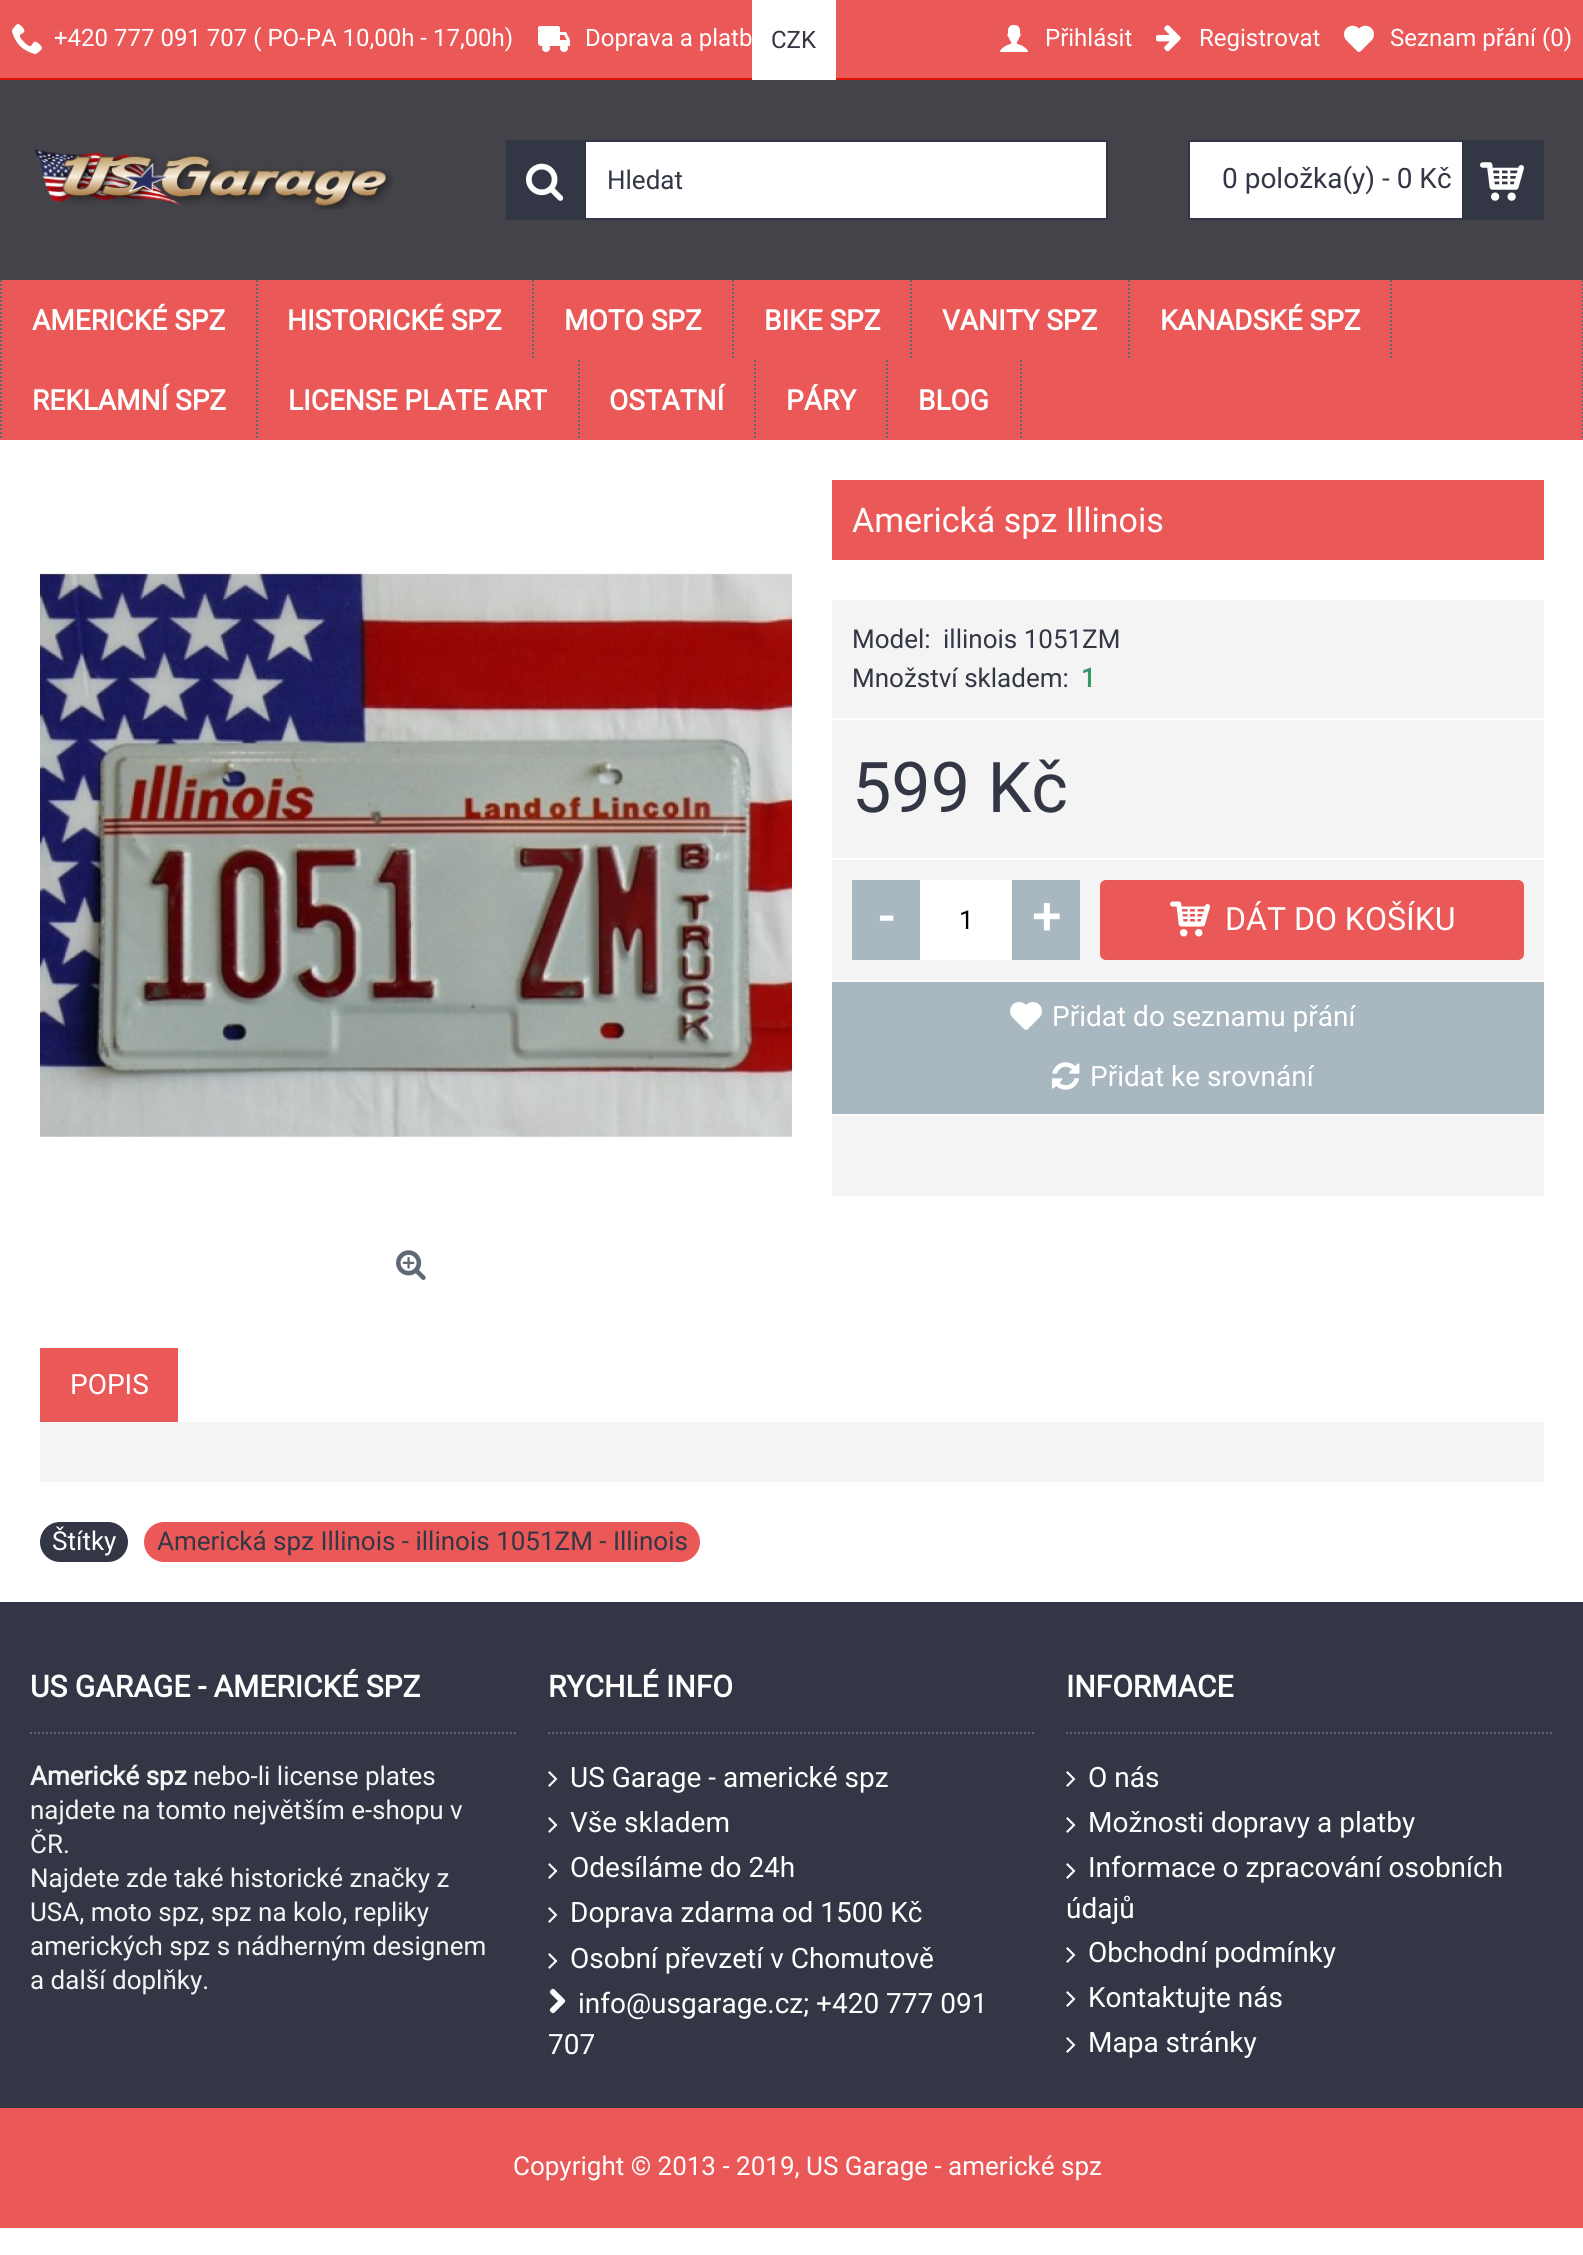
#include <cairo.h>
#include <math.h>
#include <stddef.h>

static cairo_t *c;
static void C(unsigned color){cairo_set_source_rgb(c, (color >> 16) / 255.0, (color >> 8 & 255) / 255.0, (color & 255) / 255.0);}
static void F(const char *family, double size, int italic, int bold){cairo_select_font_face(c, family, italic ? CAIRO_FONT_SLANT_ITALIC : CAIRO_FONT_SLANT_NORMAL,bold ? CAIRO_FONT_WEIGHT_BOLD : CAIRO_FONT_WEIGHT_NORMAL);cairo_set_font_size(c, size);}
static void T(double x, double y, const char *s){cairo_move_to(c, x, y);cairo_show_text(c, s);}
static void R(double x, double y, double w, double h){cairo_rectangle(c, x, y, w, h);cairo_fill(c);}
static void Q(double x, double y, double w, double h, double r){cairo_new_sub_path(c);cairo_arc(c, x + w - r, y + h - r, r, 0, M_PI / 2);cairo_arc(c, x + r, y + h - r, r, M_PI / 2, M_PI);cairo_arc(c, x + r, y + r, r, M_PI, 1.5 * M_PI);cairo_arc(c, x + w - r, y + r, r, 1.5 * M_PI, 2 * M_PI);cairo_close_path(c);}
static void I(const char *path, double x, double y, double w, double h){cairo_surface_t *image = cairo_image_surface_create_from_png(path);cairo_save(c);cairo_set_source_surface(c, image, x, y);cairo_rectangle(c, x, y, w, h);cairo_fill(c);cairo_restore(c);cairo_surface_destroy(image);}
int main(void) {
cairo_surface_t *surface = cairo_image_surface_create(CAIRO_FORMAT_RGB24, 1583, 2255);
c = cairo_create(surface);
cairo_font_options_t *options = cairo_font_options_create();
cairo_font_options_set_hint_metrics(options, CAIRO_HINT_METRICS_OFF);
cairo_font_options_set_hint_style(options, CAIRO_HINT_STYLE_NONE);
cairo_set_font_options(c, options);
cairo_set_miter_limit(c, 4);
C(0xffffff);
cairo_paint(c);
C(0x444349);
R(0,80,1583,200);
C(0xeb5858);
R(0,0,1583,78);
C(0xe01203);
R(0,78,1583,2);
I("1.png",12,24,30,30);
F("Roboto",24,0,0);
C(0xffffff);
T(54,46,"+420 777 091 707 ( PO-PA 10,00h - 17,00h)");
I("2.png",538,26,32,26);
T(585,46,"Doprava a platb");
R(834,0,2,80);
R(752,0,82,80);
C(0x333745);
T(771,48,"CZK");
I("3.png",1000,25,28,27);
C(0xffffff);
T(1045,46,"Přihlásit");
I("4.png",1156,25,25,27);
T(1199,46,"Registrovat");
I("5.png",1344,25,30,27);
T(1390,46,"Seznam přání (0)");
I("6.png",34,149,360,61);
R(586,142,520,76);
cairo_rectangle(c,507,141,600,78);
C(0x333745);
cairo_stroke(c);
R(508,142,78,76);
I("7.png",526,163,38,38);
F("Roboto",26,0,0);
T(607,189,"Hledat");
C(0xffffff);
R(1190,142,272,76);
cairo_rectangle(c,1189,141,354,78);
C(0x333745);
cairo_stroke(c);
F("Roboto",28,0,0);
T(1222,188,"0 položka(y) - 0 Kč");
R(1462,142,80,76);
I("8.png",1480,162,44,39);
C(0xeb5858);
R(0,280,1583,160);
cairo_new_path(c);
cairo_move_to(c,1583,280);
cairo_line_to(c,1583,440);
C(0x5f6874);
cairo_set_dash(c,(double[]){2,2},2,0);
cairo_stroke(c);
cairo_new_path(c);
cairo_move_to(c,1,280);
cairo_line_to(c,1,440);
cairo_stroke(c);
cairo_new_path(c);
cairo_move_to(c,257,280);
cairo_line_to(c,257,360);
cairo_stroke(c);
F("Roboto",28,0,1);
C(0xffffff);
T(32,330,"AMERICKÉ SPZ");
cairo_new_path(c);
cairo_move_to(c,533,280);
cairo_line_to(c,533,360);
C(0x5f6874);
cairo_stroke(c);
C(0xffffff);
T(287,330,"HISTORICKÉ SPZ");
cairo_new_path(c);
cairo_move_to(c,733,280);
cairo_line_to(c,733,360);
C(0x5f6874);
cairo_stroke(c);
C(0xffffff);
T(564,330,"MOTO SPZ");
cairo_new_path(c);
cairo_move_to(c,911,280);
cairo_line_to(c,911,360);
C(0x5f6874);
cairo_stroke(c);
C(0xffffff);
T(764,330,"BIKE SPZ");
cairo_new_path(c);
cairo_move_to(c,1129,280);
cairo_line_to(c,1129,360);
C(0x5f6874);
cairo_stroke(c);
C(0xffffff);
T(942,330,"VANITY SPZ");
cairo_new_path(c);
cairo_move_to(c,1391,280);
cairo_line_to(c,1391,360);
C(0x5f6874);
cairo_stroke(c);
C(0xffffff);
T(1160,330,"KANADSKÉ SPZ");
cairo_new_path(c);
cairo_move_to(c,257,360);
cairo_line_to(c,257,440);
C(0x5f6874);
cairo_stroke(c);
C(0xffffff);
T(32,410,"REKLAMNÍ SPZ");
cairo_new_path(c);
cairo_move_to(c,579,360);
cairo_line_to(c,579,440);
C(0x5f6874);
cairo_stroke(c);
C(0xffffff);
T(288,410,"LICENSE PLATE ART");
cairo_new_path(c);
cairo_move_to(c,755,360);
cairo_line_to(c,755,440);
C(0x5f6874);
cairo_stroke(c);
C(0xffffff);
T(609,410,"OSTATNÍ");
cairo_new_path(c);
cairo_move_to(c,887,360);
cairo_line_to(c,887,440);
C(0x5f6874);
cairo_stroke(c);
C(0xffffff);
T(786,410,"PÁRY");
cairo_new_path(c);
cairo_move_to(c,1021,360);
cairo_line_to(c,1021,440);
C(0x5f6874);
cairo_stroke(c);
C(0xffffff);
T(918,410,"BLOG");
I("9.png",40,566,752,571);
I("10.png",396,1250,30,30);
C(0xeb5858);
R(832,480,712,80);
F("Roboto",34,0,0);
C(0xffffff);
T(852,532,"Americká spz Illinois");
C(0xf4f4f4);
R(832,600,712,118);
F("Roboto",26,0,0);
C(0x333745);
T(852,648,"Model:");
T(943,648,"illinois 1051ZM");
T(852,687,"Množství skladem:");
F("Roboto",26,0,1);
C(0x339965);
T(1081,687,"1");
C(0xf4f4f4);
R(832,720,712,138);
F("Roboto",70,0,0);
C(0x333745);
T(852,812,"599 Kč");
C(0xf4f4f4);
R(832,860,712,120);
C(0xa9b8c0);
R(852,880,68,80);
F("Roboto",50,0,1);
C(0xffffff);
T(879,934,"-");
R(920,880,92,80);
F("Roboto",26,0,0);
C(0x000000);
T(959,929,"1");
C(0xa9b8c0);
R(1012,880,68,80);
F("Roboto",50,0,1);
C(0xffffff);
T(1032,934,"+");
C(0xeb5858);
Q(1100,880,424,80,6);
cairo_fill(c);
I("11.png",1170,901,40,36);
F("Roboto",32,0,0);
C(0xffffff);
T(1225,930,"DÁT DO KOŠÍKU");
C(0xa9b8c0);
R(832,982,712,132);
I("12.png",1010,1002,32,28);
F("Roboto",28,0,0);
C(0xffffff);
T(1052,1026,"Přidat do seznamu přání");
I("13.png",1052,1062,28,28);
T(1090,1086,"Přidat ke srovnání");
C(0xf4f4f4);
R(832,1116,712,80);
C(0xeb5858);
R(40,1348,138,74);
C(0xffffff);
T(70,1394,"POPIS");
C(0xf4f4f4);
R(40,1422,1504,60);
C(0x333745);
Q(40,1522,88,40,20);
cairo_fill(c);
F("Roboto",26,0,0);
C(0xffffff);
T(52,1550,"Štítky");
C(0xeb5858);
Q(144,1522,556,40,20);
cairo_fill(c);
C(0x333745);
T(157,1550,"Americká spz Illinois - illinois 1051ZM - Illinois");
R(0,1602,1583,506);
cairo_new_path(c);
cairo_move_to(c,30,1733);
cairo_line_to(c,518,1733);
C(0x5f6874);
cairo_stroke(c);
F("Roboto",30,0,1);
C(0xffffff);
T(30,1697,"US GARAGE - AMERICKÉ SPZ");
F("Roboto",26,0,1);
C(0xf4f4f4);
T(30,1785,"Americké spz");
F("Roboto",26,0,0);
T(193,1785,"nebo-li license plates");
T(30,1819,"najdete na tomto největším e-shopu v");
T(30,1853,"ČR.");
T(30,1887,"Najdete zde také historické značky z");
T(30,1921,"USA, moto spz, spz na kolo, repliky");
T(30,1955,"amerických spz s nádherným designem");
T(30,1989,"a další doplňky.");
cairo_new_path(c);
cairo_move_to(c,548,1733);
cairo_line_to(c,1036,1733);
C(0x5f6874);
cairo_stroke(c);
F("Roboto",30,0,1);
C(0xffffff);
T(548,1697,"RYCHLÉ INFO");
I("14.png",548,1771,10,16);
F("Roboto",28,0,0);
T(570,1787,"US Garage - americké spz");
I("14.png",548,1817,10,16);
T(570,1832,"Vše skladem");
I("14.png",548,1863,10,16);
T(570,1877,"Odesíláme do 24h");
I("14.png",548,1907,10,16);
T(570,1922,"Doprava zdarma od 1500 Kč");
I("14.png",548,1953,10,16);
T(570,1968,"Osobní převzetí v Chomutově");
I("15.png",549,1988,17,26);
T(578,2013,"info@usgarage.cz; +420 777 091");
T(548,2054,"707");
cairo_new_path(c);
cairo_move_to(c,1066,1733);
cairo_line_to(c,1554,1733);
C(0x5f6874);
cairo_stroke(c);
F("Roboto",30,0,1);
C(0xffffff);
T(1066,1697,"INFORMACE");
I("14.png",1066,1771,10,16);
F("Roboto",28,0,0);
T(1088,1787,"O nás");
I("14.png",1066,1817,10,16);
T(1088,1832,"Možnosti dopravy a platby");
I("14.png",1066,1863,10,16);
T(1088,1877,"Informace o zpracování osobních");
T(1066,1918,"údajů");
I("14.png",1066,1947,10,16);
T(1088,1962,"Obchodní podmínky");
I("14.png",1066,1991,10,16);
T(1088,2007,"Kontaktujte nás");
I("14.png",1066,2037,10,16);
T(1088,2052,"Mapa stránky");
C(0xeb5858);
R(0,2108,1583,120);
F("Roboto",26,0,0);
C(0xffffff);
T(513,2175,"Copyright © 2013 - 2019, US Garage - americké spz");
cairo_surface_write_to_png(surface, "o.png");
cairo_font_options_destroy(options);
cairo_destroy(c);
cairo_surface_destroy(surface);
return 0;
}
